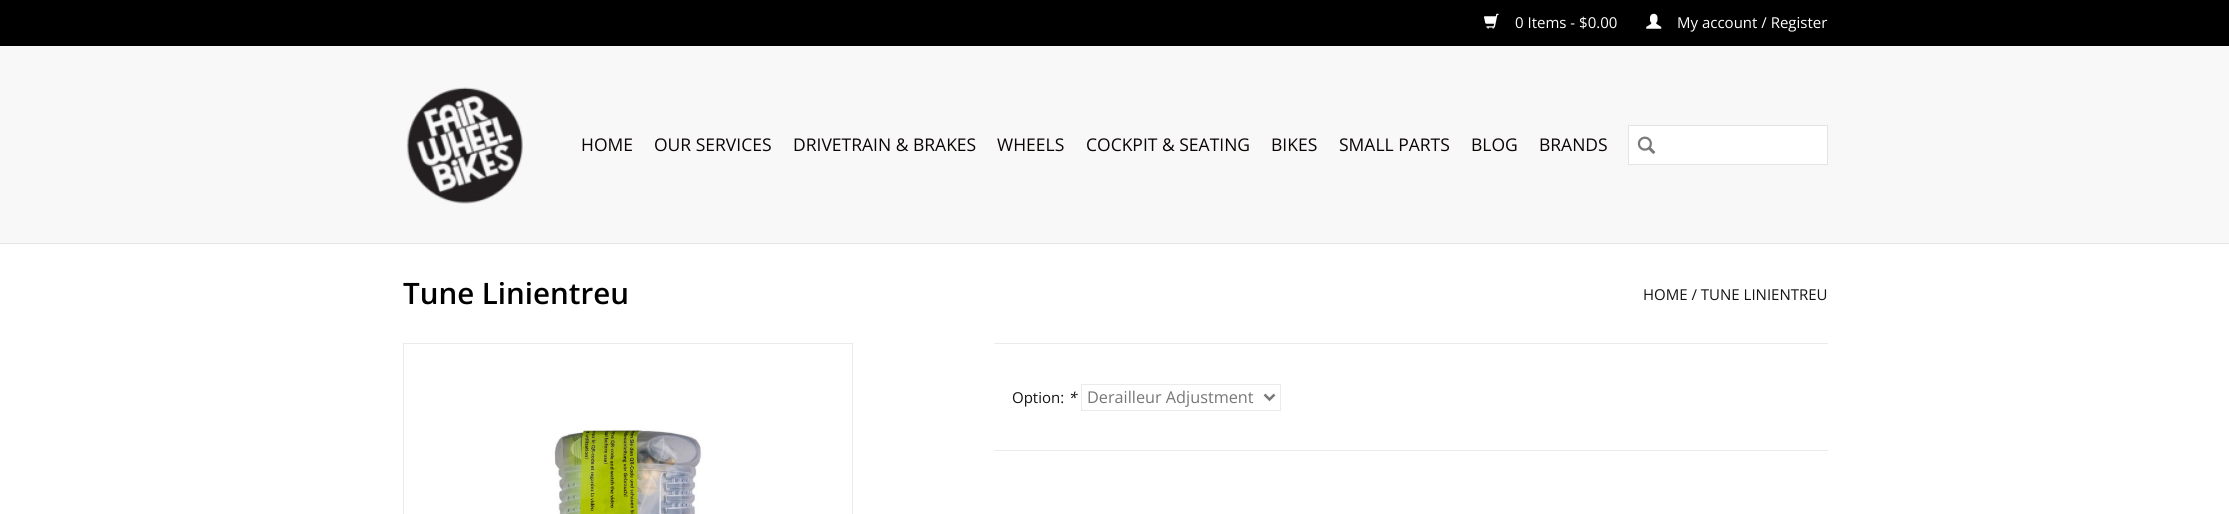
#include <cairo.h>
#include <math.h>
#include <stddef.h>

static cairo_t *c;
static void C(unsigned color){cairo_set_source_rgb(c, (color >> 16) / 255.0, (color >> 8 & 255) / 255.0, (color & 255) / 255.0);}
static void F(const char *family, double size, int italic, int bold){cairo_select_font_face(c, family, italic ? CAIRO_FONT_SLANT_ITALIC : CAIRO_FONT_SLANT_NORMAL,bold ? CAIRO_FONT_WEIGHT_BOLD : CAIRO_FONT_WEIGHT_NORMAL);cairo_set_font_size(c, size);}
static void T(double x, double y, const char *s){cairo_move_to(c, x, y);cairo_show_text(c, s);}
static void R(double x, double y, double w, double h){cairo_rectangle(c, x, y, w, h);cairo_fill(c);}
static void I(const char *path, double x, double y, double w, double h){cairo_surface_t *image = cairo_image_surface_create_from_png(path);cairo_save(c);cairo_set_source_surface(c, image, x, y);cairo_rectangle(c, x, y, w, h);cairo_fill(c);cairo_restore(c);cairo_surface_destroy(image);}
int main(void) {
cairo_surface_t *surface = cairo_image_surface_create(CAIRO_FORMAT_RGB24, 2229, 514);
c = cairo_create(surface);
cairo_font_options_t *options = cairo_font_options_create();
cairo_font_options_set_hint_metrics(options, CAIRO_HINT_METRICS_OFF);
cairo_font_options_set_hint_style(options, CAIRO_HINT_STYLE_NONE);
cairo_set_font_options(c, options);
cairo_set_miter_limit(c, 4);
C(0xffffff);
cairo_paint(c);
C(0xf8f8f8);
R(0,46,2229,197);
C(0xe4e4e4);
R(0,243,2229,1);
C(0x000000);
R(0,0,2229,46);
I("1.png",1484,13,15,16);
F("Open Sans",15,0,0);
C(0xffffff);
T(1515,28,"0 Items - $0.00");
I("2.png",1646,13,16,16);
T(1677,28,"My account / Register");
I("3.png",406,87,117,117);
F("Open Sans",17.5,0,0);
C(0x0b0404);
T(581,151,"HOME");
T(654,151,"OUR SERVICES");
T(793,151,"DRIVETRAIN & BRAKES");
T(997,151,"WHEELS");
T(1086,151,"COCKPIT & SEATING");
T(1271,151,"BIKES");
T(1339,151,"SMALL PARTS");
T(1471,151,"BLOG");
T(1539,151,"BRANDS");
C(0xffffff);
cairo_rectangle(c,1628.5,125.5,199,39);
cairo_fill_preserve(c);
C(0xe4e4e4);
cairo_set_line_width(c,1);
cairo_stroke(c);
I("4.png",1637,136,19,18);
F("Open Sans SemiBold",29.5,0,0);
C(0x000000);
T(403,304,"Tune Linientreu");
F("Open Sans",15,0,0);
C(0x141414);
T(1643,300,"HOME / TUNE LINIENTREU");
cairo_rectangle(c,403.5,343.5,449,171);
C(0xeaeaea);
cairo_stroke(c);
I("5.png",404,344,447,170);
R(994,343,834,1);
C(0x141414);
T(1012,403,"Option:");
F("Open Sans",15,1,0);
T(1068,403,"*");
cairo_rectangle(c,1081.5,384.5,199,26);
C(0xeaeaea);
cairo_stroke(c);
cairo_new_path(c);
cairo_move_to(c,1264.5,394.5);
cairo_line_to(c,1269.5,399.5);
cairo_line_to(c,1274.5,394.5);
C(0x777777);
cairo_set_line_width(c,2.5);
cairo_stroke(c);
F("Open Sans",16.25,0,0);
T(1087,403,"Derailleur Adjustment");
C(0xeaeaea);
R(994,450,834,1);
cairo_surface_write_to_png(surface, "o.png");
cairo_font_options_destroy(options);
cairo_destroy(c);
cairo_surface_destroy(surface);
return 0;
}
